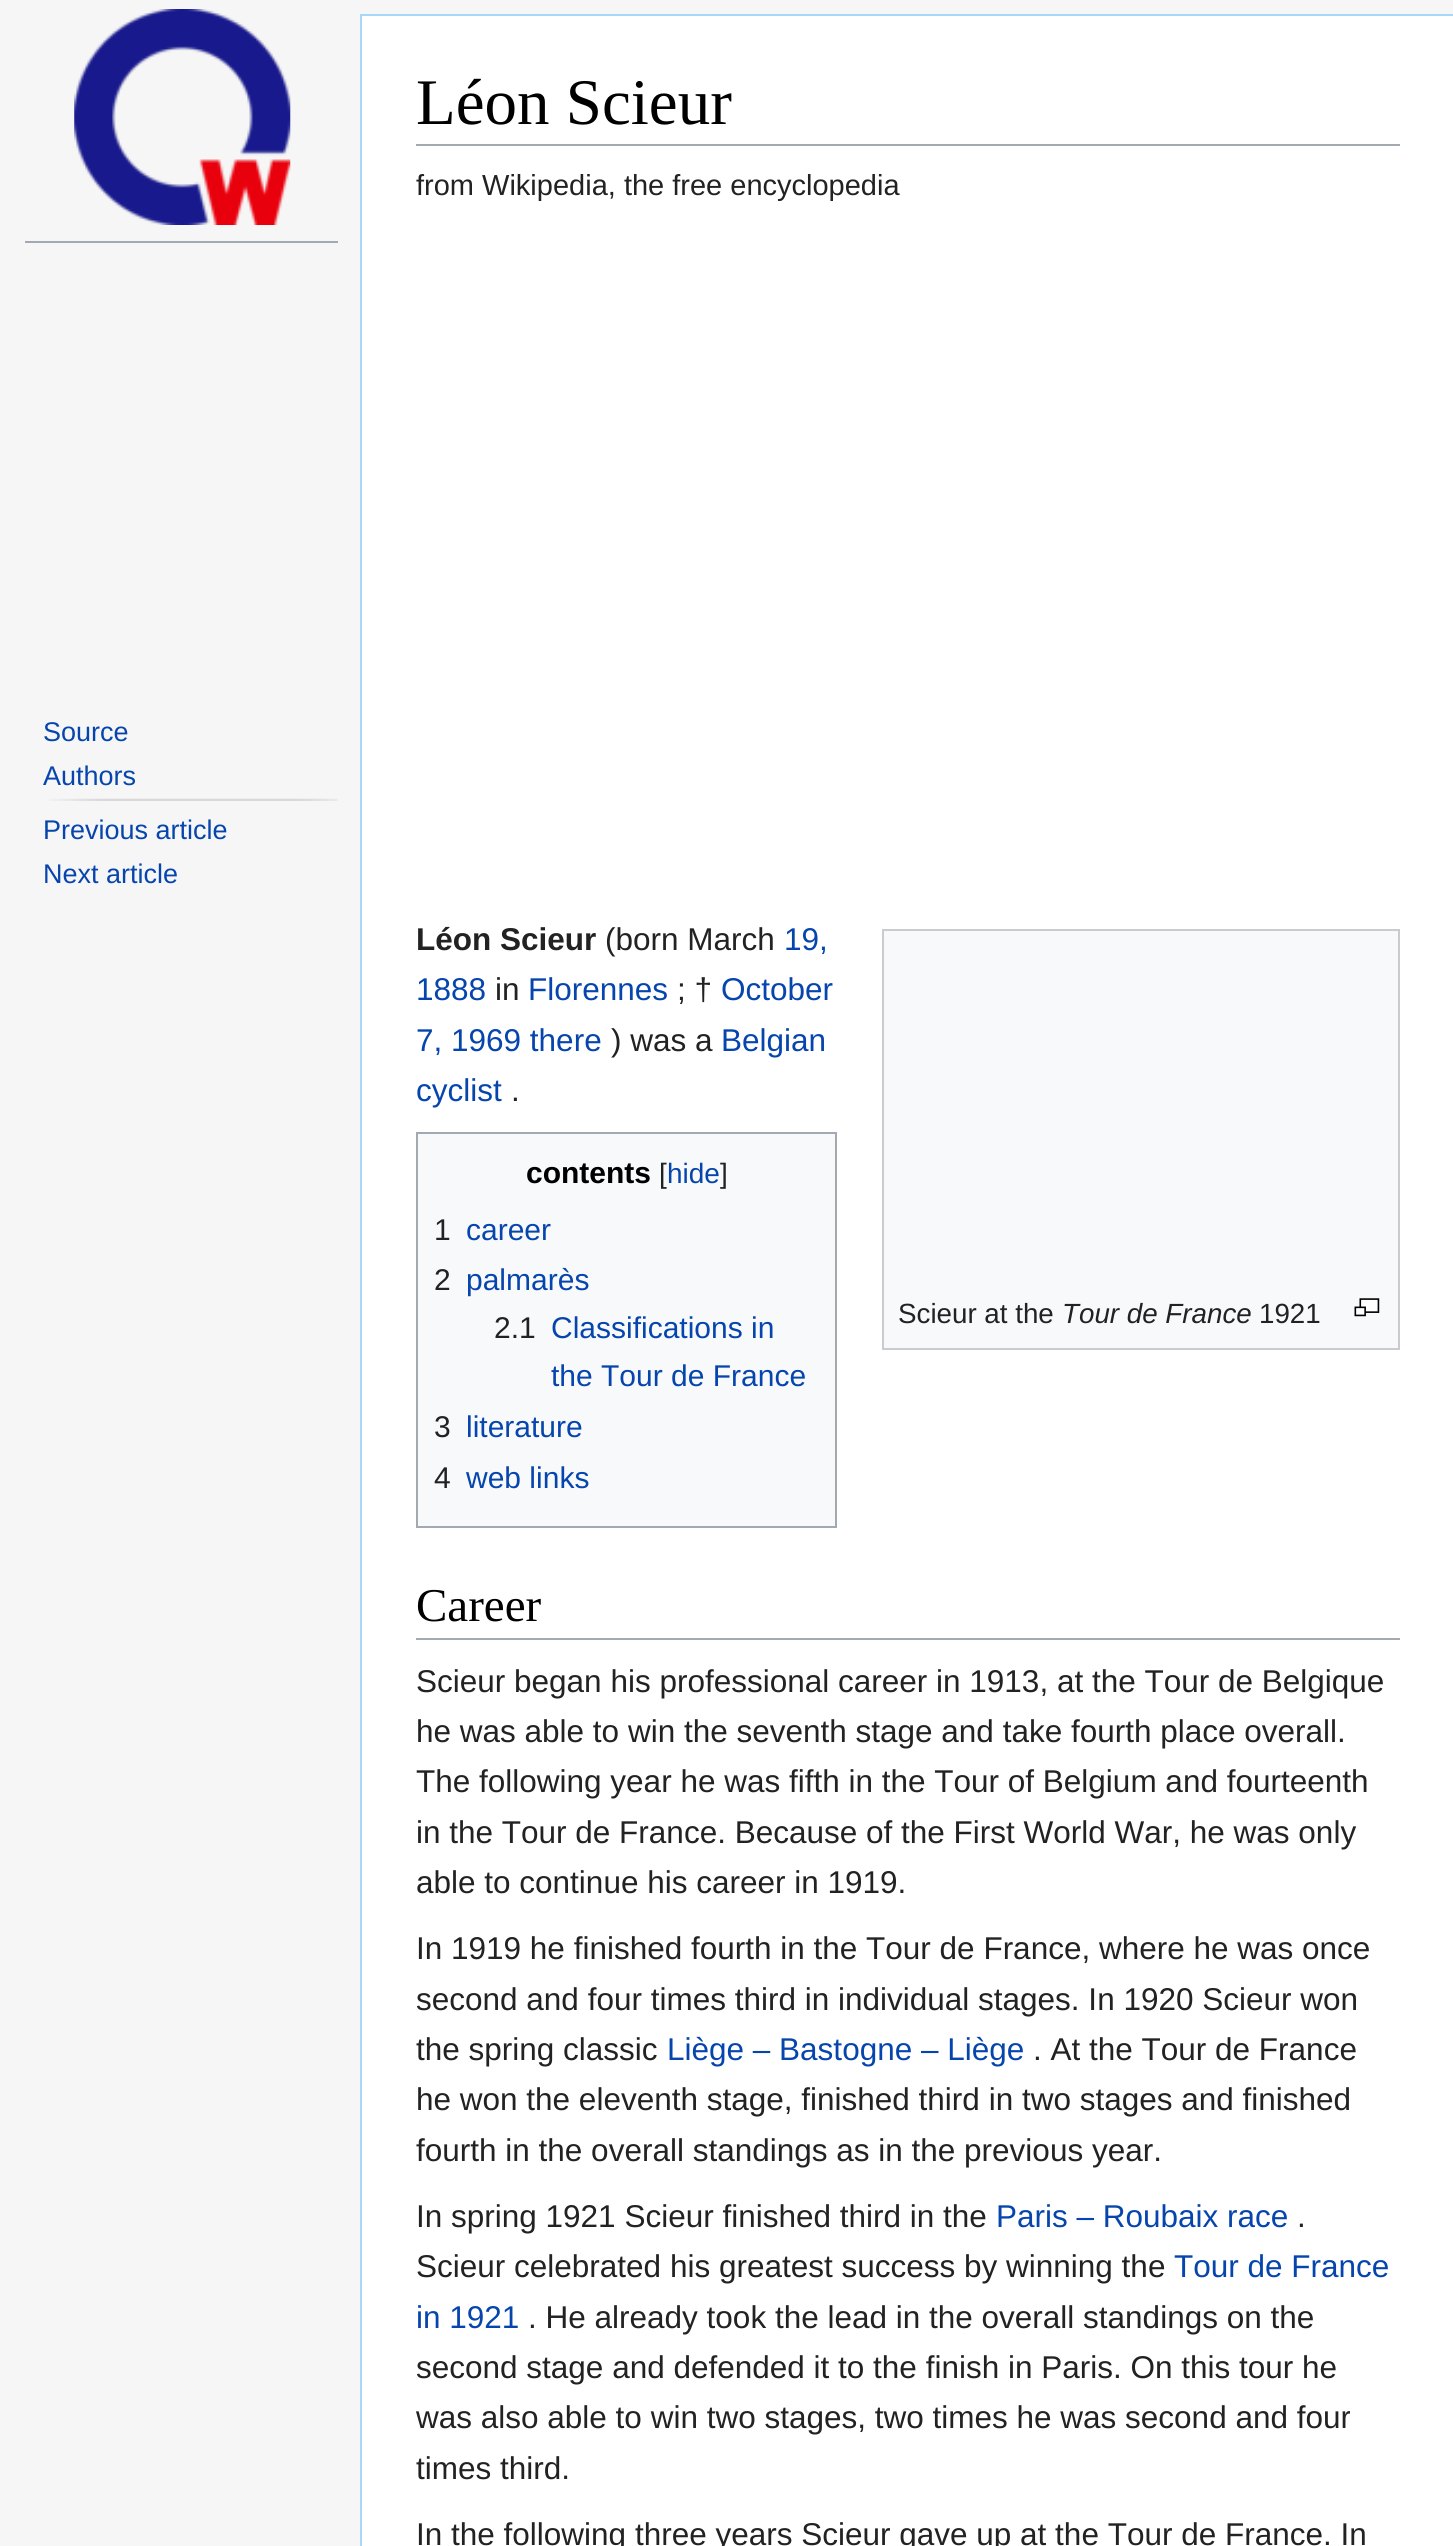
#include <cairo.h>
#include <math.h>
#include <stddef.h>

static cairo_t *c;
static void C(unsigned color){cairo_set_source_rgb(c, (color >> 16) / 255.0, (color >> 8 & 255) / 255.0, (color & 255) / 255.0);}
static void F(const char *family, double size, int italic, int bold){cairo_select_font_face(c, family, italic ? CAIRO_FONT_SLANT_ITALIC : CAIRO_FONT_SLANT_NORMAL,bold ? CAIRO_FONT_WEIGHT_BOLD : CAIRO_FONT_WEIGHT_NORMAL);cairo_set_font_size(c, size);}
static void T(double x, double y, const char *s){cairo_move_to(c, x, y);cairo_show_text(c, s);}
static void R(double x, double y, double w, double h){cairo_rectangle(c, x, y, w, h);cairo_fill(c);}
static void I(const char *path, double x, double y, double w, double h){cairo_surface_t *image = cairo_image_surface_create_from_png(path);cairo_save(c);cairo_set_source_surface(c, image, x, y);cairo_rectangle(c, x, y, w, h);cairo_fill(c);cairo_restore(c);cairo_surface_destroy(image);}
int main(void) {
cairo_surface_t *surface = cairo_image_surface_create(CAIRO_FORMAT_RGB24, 1453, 2546);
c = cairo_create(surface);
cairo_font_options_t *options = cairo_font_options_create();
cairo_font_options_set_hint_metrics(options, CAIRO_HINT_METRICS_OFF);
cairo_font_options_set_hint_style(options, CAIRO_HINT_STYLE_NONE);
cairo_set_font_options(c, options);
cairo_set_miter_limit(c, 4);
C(0xf6f6f6);
cairo_paint(c);
I("1.png",74,9,217,216);
C(0xa2a9b1);
R(25,241,313,2);
F("Liberation Sans",27,0,0);
C(0x0645ad);
T(43,741,"Source");
T(43,785,"Authors");
I("2.png",49,798,289,3);
T(43,839,"Previous article");
T(43,883,"Next article");
C(0xffffff);
R(362,16,1091,2530);
C(0xa7d7f9);
R(360,14,1093,2);
R(360,14,2,2532);
C(0xa2a9b1);
R(416,144,984,2);
F("Liberation Serif",65,0,0);
C(0x000000);
T(416,124,"Léon Scieur");
F("Liberation Sans",29,0,0);
C(0x222222);
T(416,195,"from Wikipedia, the free encyclopedia");
F("Liberation Sans",31.5,0,1);
T(416,950,"Léon Scieur");
F("Liberation Sans",31.5,0,0);
T(605,950,"(born March");
C(0x0645ad);
T(784,950,"19,");
T(416,1000,"1888");
C(0x222222);
T(495,1000,"in");
C(0x0645ad);
T(528,1000,"Florennes");
C(0x222222);
T(677,1000,"; †");
C(0x0645ad);
T(721,1000,"October");
T(416,1051,"7, 1969 there");
C(0x222222);
T(611,1051,") was a");
C(0x0645ad);
T(721,1051,"Belgian");
T(416,1101,"cyclist");
C(0x222222);
T(511,1101,".");
C(0xf8f9fa);
cairo_rectangle(c,417,1133,419,394);
cairo_fill_preserve(c);
C(0xa2a9b1);
cairo_stroke(c);
F("Liberation Sans",30,0,1);
C(0x000000);
T(526,1183,"contents");
F("Liberation Sans",28,0,0);
C(0x222222);
T(659,1183,"[");
C(0x0645ad);
T(667,1183,"hide");
C(0x222222);
T(720,1183,"]");
F("Liberation Sans",30,0,0);
T(434,1240,"1");
C(0x0645ad);
T(466,1240,"career");
C(0x222222);
T(434,1290,"2");
C(0x0645ad);
T(466,1290,"palmarès");
C(0x222222);
T(494,1338,"2.1");
C(0x0645ad);
T(551,1338,"Classifications in");
T(551,1386,"the Tour de France");
C(0x222222);
T(434,1437,"3");
C(0x0645ad);
T(466,1437,"literature");
C(0x222222);
T(434,1488,"4");
C(0x0645ad);
T(466,1488,"web links");
C(0xf8f9fa);
cairo_rectangle(c,883,930,516,419);
cairo_fill_preserve(c);
C(0xc8ccd1);
cairo_stroke(c);
F("Liberation Sans",27.75,0,0);
C(0x222222);
T(898,1323,"Scieur at the");
F("Liberation Sans",27.75,1,0);
T(1062,1323,"Tour de France");
F("Liberation Sans",27.75,0,0);
T(1259,1323,"1921");
I("3.png",1354,1298,26,19);
C(0xa2a9b1);
R(416,1638,984,2);
F("Liberation Serif",47,0,0);
C(0x000000);
T(416,1621,"Career");
F("Liberation Sans",31.5,0,0);
C(0x222222);
T(416,1692,"Scieur began his professional career in 1913, at the Tour de Belgique");
T(416,1742,"he was able to win the seventh stage and take fourth place overall.");
T(416,1792,"The following year he was fifth in the Tour of Belgium and fourteenth");
T(416,1843,"in the Tour de France. Because of the First World War, he was only");
T(416,1893,"able to continue his career in 1919.");
T(416,1959,"In 1919 he finished fourth in the Tour de France, where he was once");
T(416,2010,"second and four times third in individual stages. In 1920 Scieur won");
T(416,2060,"the spring classic");
C(0x0645ad);
T(667,2060,"Liège – Bastogne – Liège");
C(0x222222);
T(1033,2060,". At the Tour de France");
T(416,2110,"he won the eleventh stage, finished third in two stages and finished");
T(416,2161,"fourth in the overall standings as in the previous year.");
T(416,2227,"In spring 1921 Scieur finished third in the");
C(0x0645ad);
T(996,2227,"Paris – Roubaix race");
C(0x222222);
T(1297,2227,".");
T(416,2277,"Scieur celebrated his greatest success by winning the");
C(0x0645ad);
T(1174,2277,"Tour de France");
T(416,2328,"in 1921");
C(0x222222);
T(528,2328,". He already took the lead in the overall standings on the");
T(416,2378,"second stage and defended it to the finish in Paris. On this tour he");
T(416,2428,"was also able to win two stages, two times he was second and four");
T(416,2479,"times third.");
T(416,2545,"In the following three years Scieur gave up at the Tour de France. In");
cairo_surface_write_to_png(surface, "o.png");
cairo_font_options_destroy(options);
cairo_destroy(c);
cairo_surface_destroy(surface);
return 0;
}
